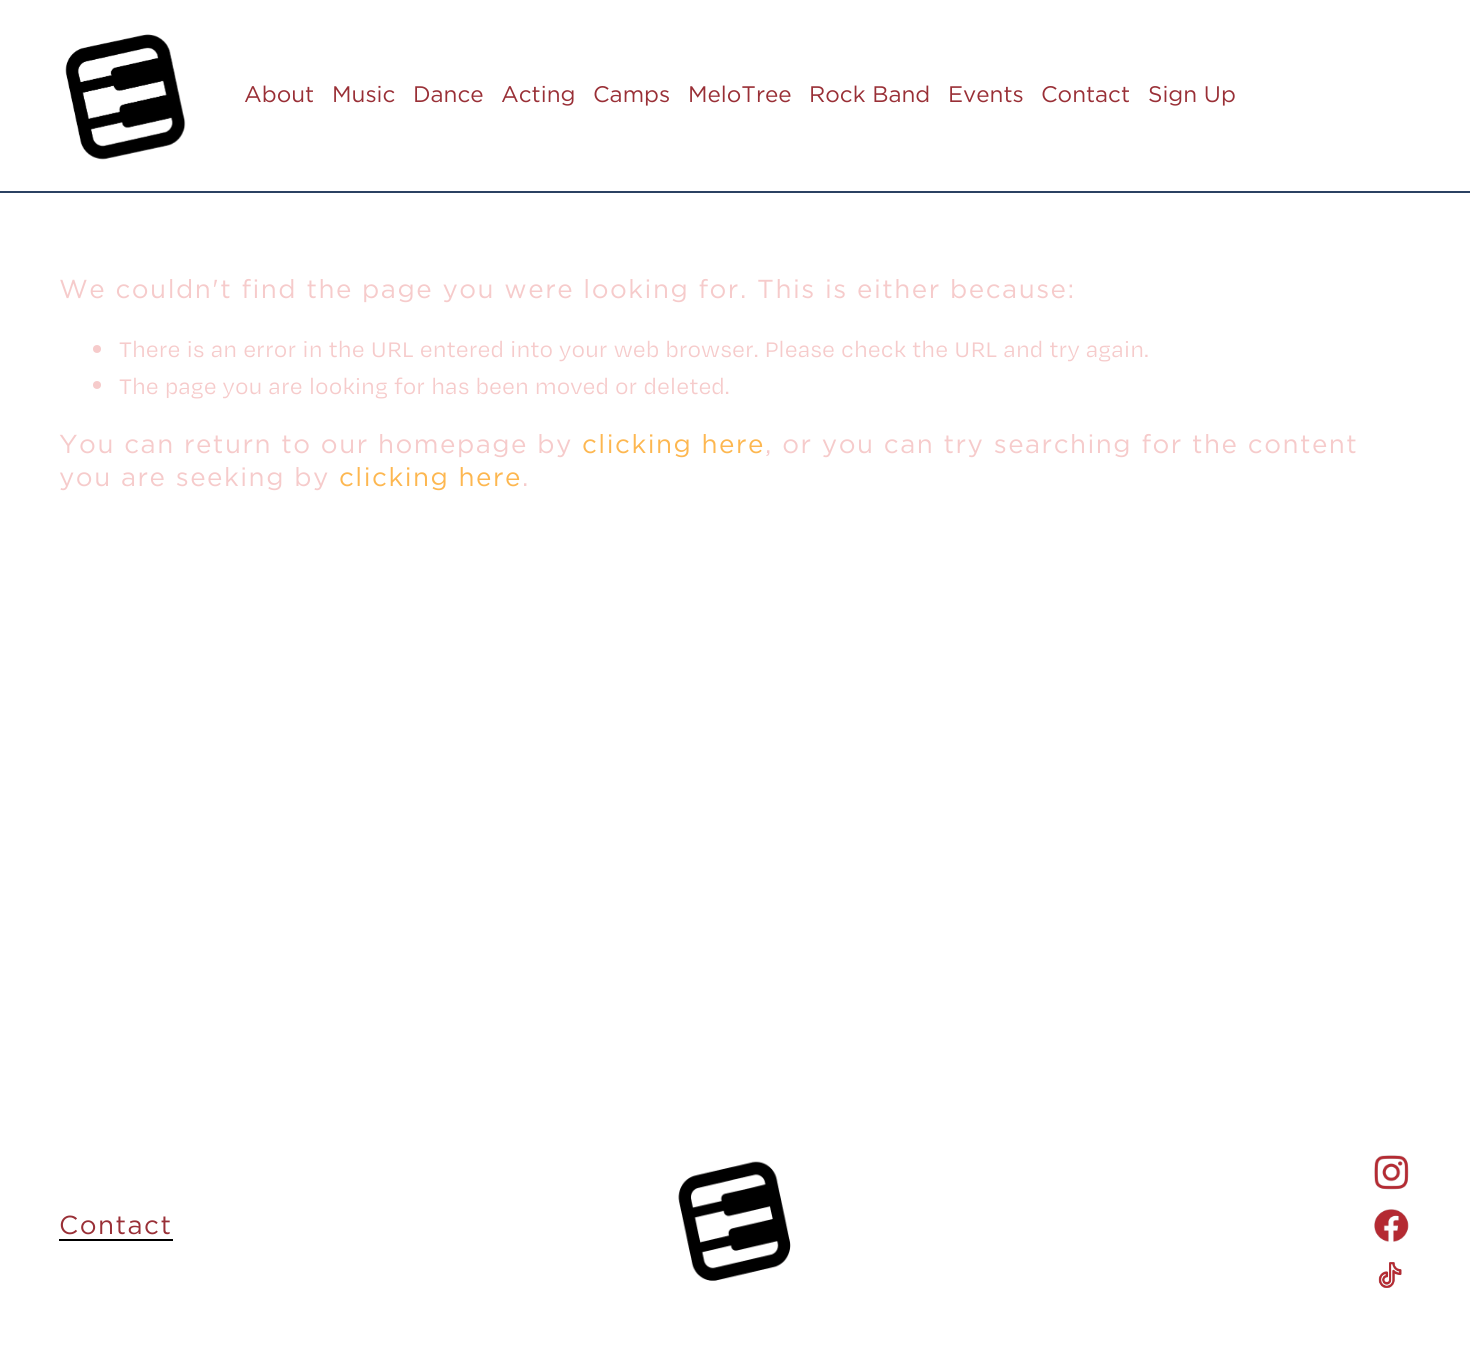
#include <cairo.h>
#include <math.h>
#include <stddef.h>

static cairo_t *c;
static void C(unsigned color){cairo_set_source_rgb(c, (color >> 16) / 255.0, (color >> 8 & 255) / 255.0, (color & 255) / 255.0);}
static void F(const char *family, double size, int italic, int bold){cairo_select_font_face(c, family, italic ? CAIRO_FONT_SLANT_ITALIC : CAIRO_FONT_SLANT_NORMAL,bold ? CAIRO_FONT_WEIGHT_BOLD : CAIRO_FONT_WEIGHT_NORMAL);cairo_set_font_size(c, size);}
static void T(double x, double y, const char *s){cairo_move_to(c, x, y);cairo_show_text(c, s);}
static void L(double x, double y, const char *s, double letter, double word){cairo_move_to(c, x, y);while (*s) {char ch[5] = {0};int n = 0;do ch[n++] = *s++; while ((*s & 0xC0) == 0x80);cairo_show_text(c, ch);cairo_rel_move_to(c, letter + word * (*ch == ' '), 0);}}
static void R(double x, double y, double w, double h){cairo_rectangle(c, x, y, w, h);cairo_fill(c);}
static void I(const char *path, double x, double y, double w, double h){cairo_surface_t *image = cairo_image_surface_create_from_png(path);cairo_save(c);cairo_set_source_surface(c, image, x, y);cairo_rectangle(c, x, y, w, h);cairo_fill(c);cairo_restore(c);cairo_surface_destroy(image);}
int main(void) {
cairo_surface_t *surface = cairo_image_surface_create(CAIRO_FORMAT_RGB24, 1470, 1350);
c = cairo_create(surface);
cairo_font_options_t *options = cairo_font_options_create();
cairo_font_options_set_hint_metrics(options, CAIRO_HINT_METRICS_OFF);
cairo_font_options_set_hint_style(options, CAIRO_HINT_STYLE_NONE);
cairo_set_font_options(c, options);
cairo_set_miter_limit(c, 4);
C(0xffffff);
cairo_paint(c);
I("1.png",65,34,121,126);
F("Gotham",22.5,0,0);
C(0x992f36);
T(244,102,"About");
T(332,102,"Music");
T(413,102,"Dance");
T(501,102,"Acting");
T(593,102,"Camps");
T(688,102,"MeloTree");
T(809,102,"Rock Band");
T(948,102,"Events");
T(1041,102,"Contact");
T(1148,102,"Sign Up");
C(0x2b4162);
R(0,191,1470,2);
F("Gotham",26,0,0);
C(0xf6cbcb);
L(59,298,"We couldn't find the page you were looking for. This is either because:",1.5,0);
cairo_new_path(c);
cairo_arc(c,97,349,4,0,2 * M_PI);
cairo_fill(c);
F("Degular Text",24.25,0,0);
T(119,357,"There is an error in the URL entered into your web browser. Please check the URL and try again.");
cairo_new_path(c);
cairo_arc(c,97,385,4,0,2 * M_PI);
cairo_fill(c);
T(119,394,"The page you are looking for has been moved or deleted.");
F("Gotham",26,0,0);
L(59,453,"You can return to our homepage by",1.5,0);
C(0xfdb750);
L(582,453,"clicking here",1.5,0);
C(0xf6cbcb);
L(765,453,", or you can try searching for the content",1.5,0);
L(59,486,"you are seeking by",1.5,0);
C(0xfdb750);
L(339,486,"clicking here",1.5,0);
C(0xf6cbcb);
L(522,486,".",1.5,0);
I("2.png",678,1161,113,120);
I("3.png",1374,1155,35,35);
C(0x992f36);
L(59,1234,"Contact",1.5,0);
C(0x000000);
R(59,1239,114,2);
I("4.png",1374,1209,35,33);
I("5.png",1378,1262,24,26);
cairo_surface_write_to_png(surface, "o.png");
cairo_font_options_destroy(options);
cairo_destroy(c);
cairo_surface_destroy(surface);
return 0;
}
